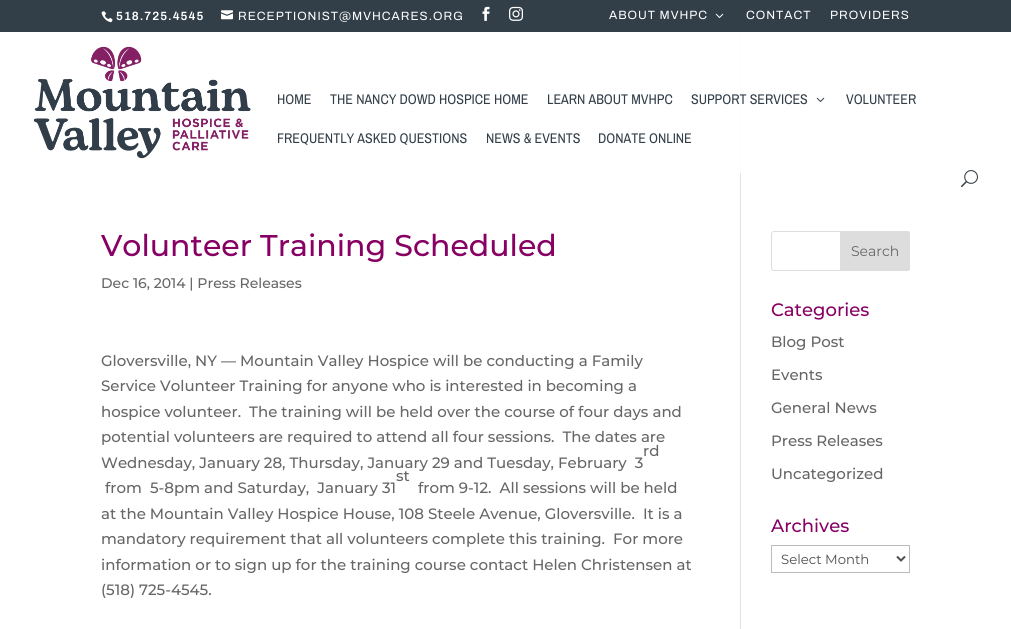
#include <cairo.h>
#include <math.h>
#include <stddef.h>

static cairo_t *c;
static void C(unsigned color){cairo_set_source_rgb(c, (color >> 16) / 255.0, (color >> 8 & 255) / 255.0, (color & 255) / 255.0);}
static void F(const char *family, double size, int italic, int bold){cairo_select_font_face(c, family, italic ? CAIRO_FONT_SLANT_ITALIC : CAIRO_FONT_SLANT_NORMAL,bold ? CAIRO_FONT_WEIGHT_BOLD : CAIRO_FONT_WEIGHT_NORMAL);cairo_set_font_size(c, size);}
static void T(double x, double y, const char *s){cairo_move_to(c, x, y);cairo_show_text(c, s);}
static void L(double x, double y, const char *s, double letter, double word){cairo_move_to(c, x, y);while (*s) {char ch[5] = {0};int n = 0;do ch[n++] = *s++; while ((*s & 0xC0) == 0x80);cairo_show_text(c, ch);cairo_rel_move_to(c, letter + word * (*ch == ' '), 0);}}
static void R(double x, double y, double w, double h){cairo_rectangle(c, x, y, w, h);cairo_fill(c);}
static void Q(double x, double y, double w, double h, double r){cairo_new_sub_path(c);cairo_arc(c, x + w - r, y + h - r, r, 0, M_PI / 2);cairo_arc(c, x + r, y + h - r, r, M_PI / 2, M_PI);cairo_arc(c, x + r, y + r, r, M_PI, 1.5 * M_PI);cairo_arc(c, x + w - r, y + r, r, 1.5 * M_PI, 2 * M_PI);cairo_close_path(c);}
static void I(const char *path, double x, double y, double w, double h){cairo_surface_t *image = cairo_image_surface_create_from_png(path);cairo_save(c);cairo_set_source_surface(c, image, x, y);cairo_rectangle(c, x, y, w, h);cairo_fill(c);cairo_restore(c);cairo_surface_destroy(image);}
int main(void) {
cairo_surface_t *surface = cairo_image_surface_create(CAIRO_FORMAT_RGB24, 1011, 629);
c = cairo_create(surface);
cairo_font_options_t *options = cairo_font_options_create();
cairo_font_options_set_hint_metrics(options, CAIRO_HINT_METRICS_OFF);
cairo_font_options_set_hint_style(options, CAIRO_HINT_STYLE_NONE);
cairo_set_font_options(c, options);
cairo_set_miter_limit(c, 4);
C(0xffffff);
cairo_paint(c);
C(0x323e48);
R(0,0,1011,32);
I("1.png",101,11,12,12);
F("Archivo SemiBold",12,0,0);
C(0xffffff);
L(116,20,"518.725.4545",1,0);
I("2.png",221,10,12,10);
F("Archivo",12,0,0);
L(238,20,"RECEPTIONIST@MVHCARES.ORG",1,0);
I("3.png",482,6,8,15);
I("4.png",509,6,14,15);
L(609,19,"ABOUT MVHPC",1,0);
I("5.png",715,13,9,5);
L(746,19,"CONTACT",1,0);
L(830,19,"PROVIDERS",1,0);
I("6.png",33,46,218,113);
F("Archivo Narrow",14,0,0);
C(0x323e48);
T(277,104,"HOME");
T(330,104,"THE NANCY DOWD HOSPICE HOME");
T(547,104,"LEARN ABOUT MVHPC");
C(0xfcfcfc);
R(740,32,1,141);
C(0x323e48);
T(691,104,"SUPPORT SERVICES");
I("7.png",816,97,9,5);
T(846,104,"VOLUNTEER");
T(277,143,"FREQUENTLY ASKED QUESTIONS");
T(486,143,"NEWS & EVENTS");
T(598,143,"DONATE ONLINE");
I("8.png",961,170,17,18);
C(0xe2e2e2);
R(740,173,1,456);
F("Montserrat Medium",30,0,0);
C(0x870064);
T(101,256,"Volunteer Training Scheduled");
F("Montserrat Medium",14,0,0);
C(0x666666);
T(101,288,"Dec 16, 2014 | Press Releases");
F("Montserrat Medium",15,0,0);
T(101,366,"Gloversville, NY — Mountain Valley Hospice will be conducting a Family");
T(101,391,"Service Volunteer Training for anyone who is interested in becoming a");
T(101,417,"hospice volunteer.  The training will be held over the course of four days and");
T(101,442,"potential volunteers are required to attend all four sessions.  The dates are");
T(643,456,"rd");
T(101,468,"Wednesday, January 28, Thursday, January 29 and Tuesday, February  3");
T(396,481,"st");
T(105,493,"from  5-8pm and Saturday,  January 31");
T(418,493,"from 9-12.  All sessions will be held");
T(101,519,"at the Mountain Valley Hospice House, 108 Steele Avenue, Gloversville.  It is a");
T(101,544,"mandatory requirement that all volunteers complete this training.  For more");
T(101,570,"information or to sign up for the training course contact Helen Christensen at");
T(101,595,"(518) 725-4545.");
Q(771.5,231.5,138,39,2.5);
C(0xdddddd);
cairo_set_line_width(c,1);
cairo_stroke(c);
cairo_new_path(c);
cairo_move_to(c,840.5,231.5);
cairo_line_to(c,907,231.5);
cairo_curve_to(c,908.5,231.5,909.5,232.5,909.5,234);
cairo_line_to(c,909.5,268);
cairo_curve_to(c,909.5,269.5,908.5,270.5,907,270.5);
cairo_line_to(c,840.5,270.5);
cairo_close_path(c);
cairo_fill_preserve(c);
cairo_stroke(c);
F("Montserrat",14,0,0);
C(0x666666);
T(851,256,"Search");
F("Montserrat Medium",18,0,0);
C(0x870064);
T(771,316,"Categories");
F("Montserrat Medium",15,0,0);
C(0x666666);
T(771,347,"Blog Post");
T(771,380,"Events");
T(771,413,"General News");
T(771,446,"Press Releases");
T(771,479,"Uncategorized");
F("Montserrat Medium",18,0,0);
C(0x870064);
T(771,532,"Archives");
cairo_rectangle(c,771.5,545.5,138,27);
C(0xbbbbbb);
cairo_stroke(c);
cairo_new_path(c);
cairo_move_to(c,897,556.5);
cairo_line_to(c,901,560.5);
cairo_line_to(c,905,556.5);
C(0x4e4e4e);
cairo_set_line_width(c,2);
cairo_stroke(c);
F("Montserrat",13.25,0,0);
T(781,564,"Select Month");
cairo_surface_write_to_png(surface, "o.png");
cairo_font_options_destroy(options);
cairo_destroy(c);
cairo_surface_destroy(surface);
return 0;
}
